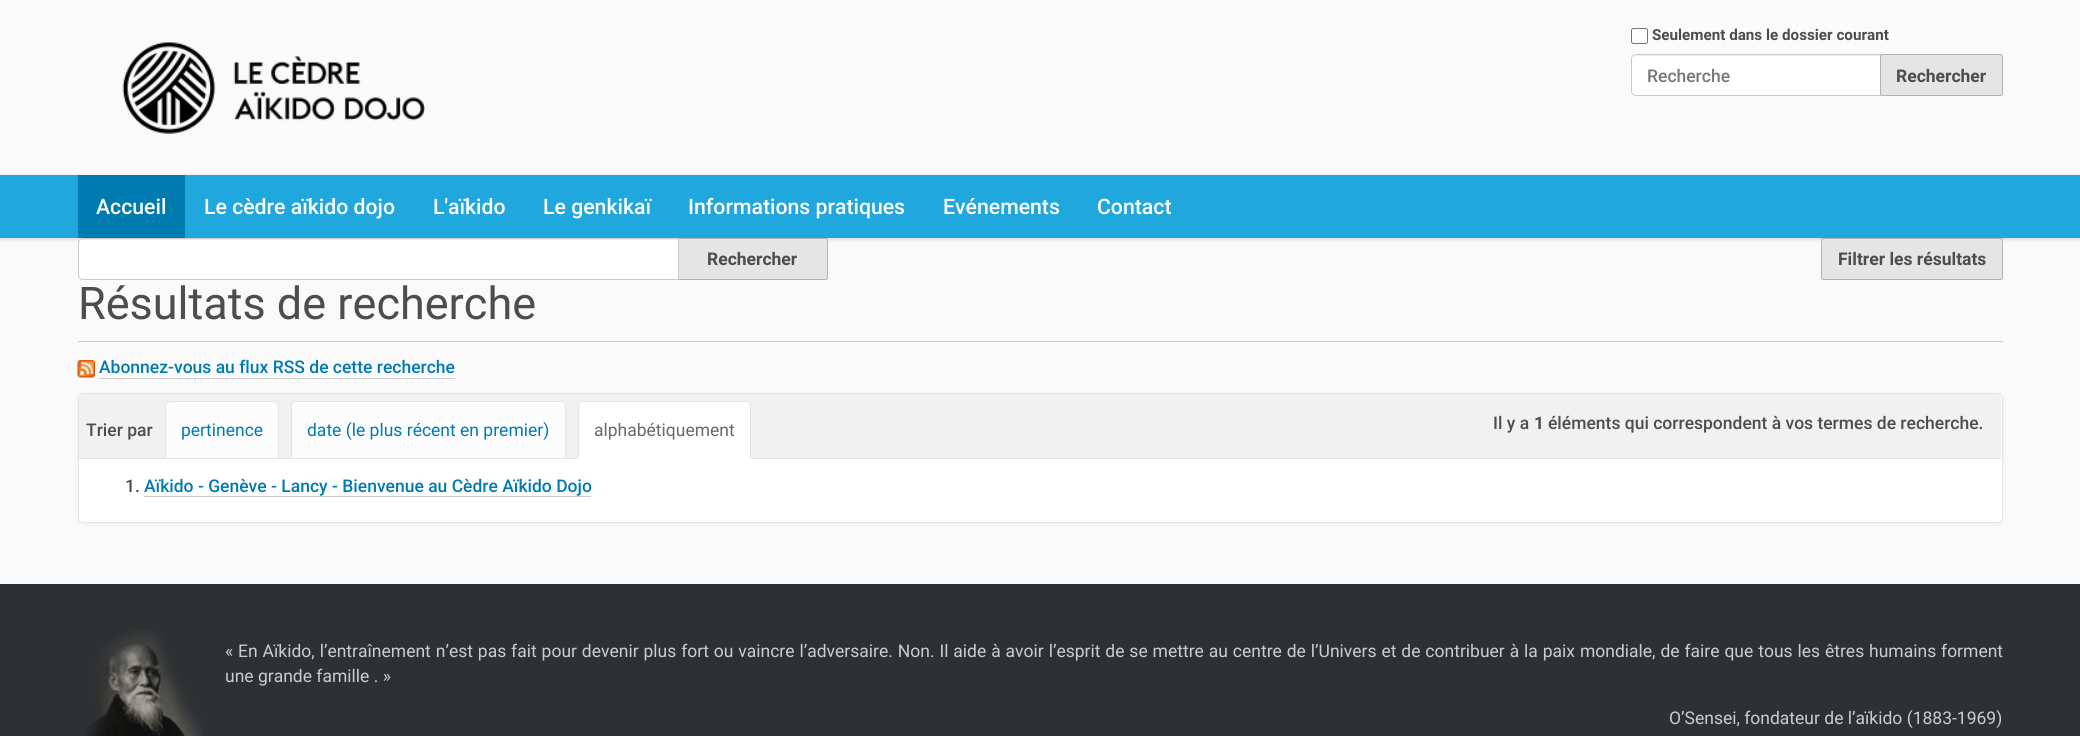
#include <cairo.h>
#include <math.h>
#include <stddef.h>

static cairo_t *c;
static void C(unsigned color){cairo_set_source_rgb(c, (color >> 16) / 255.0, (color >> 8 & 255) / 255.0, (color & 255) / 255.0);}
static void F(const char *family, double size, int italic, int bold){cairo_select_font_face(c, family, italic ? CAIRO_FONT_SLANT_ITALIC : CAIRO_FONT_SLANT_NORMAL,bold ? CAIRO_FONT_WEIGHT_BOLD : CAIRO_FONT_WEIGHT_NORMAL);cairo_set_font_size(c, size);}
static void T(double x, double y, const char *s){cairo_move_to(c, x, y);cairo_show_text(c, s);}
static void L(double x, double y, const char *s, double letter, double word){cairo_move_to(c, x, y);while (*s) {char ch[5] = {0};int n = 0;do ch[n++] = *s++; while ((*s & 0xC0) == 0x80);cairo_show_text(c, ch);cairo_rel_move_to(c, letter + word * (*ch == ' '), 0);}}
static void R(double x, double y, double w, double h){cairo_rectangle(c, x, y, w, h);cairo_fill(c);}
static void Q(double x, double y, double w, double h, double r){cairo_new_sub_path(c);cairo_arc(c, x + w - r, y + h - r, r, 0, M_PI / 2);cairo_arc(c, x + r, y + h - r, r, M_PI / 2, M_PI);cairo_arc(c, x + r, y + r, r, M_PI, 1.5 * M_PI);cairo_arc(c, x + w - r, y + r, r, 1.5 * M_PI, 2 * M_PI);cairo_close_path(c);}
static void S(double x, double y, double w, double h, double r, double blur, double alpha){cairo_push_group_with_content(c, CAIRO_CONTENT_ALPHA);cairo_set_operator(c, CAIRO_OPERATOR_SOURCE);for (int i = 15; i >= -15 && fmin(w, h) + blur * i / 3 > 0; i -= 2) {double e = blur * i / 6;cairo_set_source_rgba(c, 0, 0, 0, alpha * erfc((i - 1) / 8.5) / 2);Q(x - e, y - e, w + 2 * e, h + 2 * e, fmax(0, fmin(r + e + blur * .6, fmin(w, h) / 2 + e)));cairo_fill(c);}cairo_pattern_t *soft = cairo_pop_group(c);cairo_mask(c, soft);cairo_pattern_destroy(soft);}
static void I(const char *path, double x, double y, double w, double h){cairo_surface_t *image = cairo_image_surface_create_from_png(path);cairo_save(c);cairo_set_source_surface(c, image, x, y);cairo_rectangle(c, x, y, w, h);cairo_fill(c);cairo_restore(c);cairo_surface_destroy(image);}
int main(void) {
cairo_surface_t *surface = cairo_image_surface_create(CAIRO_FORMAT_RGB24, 2080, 736);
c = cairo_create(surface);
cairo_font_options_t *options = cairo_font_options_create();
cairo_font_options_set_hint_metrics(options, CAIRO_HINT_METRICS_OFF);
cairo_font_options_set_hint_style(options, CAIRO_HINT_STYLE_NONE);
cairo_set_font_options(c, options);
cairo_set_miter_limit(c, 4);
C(0xfafafa);
cairo_paint(c);
I("1.png",122,42,304,92);
C(0xffffff);
Q(1631.5,28.5,16,15,2);
cairo_fill_preserve(c);
C(0x767676);
cairo_set_line_width(c,1);
cairo_stroke(c);
F("Roboto",15.2,0,1);
C(0x4d4d4d);
T(1652,40,"Seulement dans le dossier courant");
C(0xffffff);
cairo_new_path(c);
cairo_move_to(c,1636,54);
cairo_line_to(c,1881,54);
cairo_line_to(c,1881,96);
cairo_line_to(c,1636,96);
cairo_curve_to(c,1633,96,1631,94,1631,91);
cairo_line_to(c,1631,59);
cairo_curve_to(c,1631,56,1633,54,1636,54);
cairo_close_path(c);
cairo_fill(c);
C(0xececec);
cairo_new_path(c);
cairo_move_to(c,1636,56);
cairo_line_to(c,1880,56);
cairo_line_to(c,1880,55);
cairo_line_to(c,1637,55);
cairo_curve_to(c,1636,55,1634,56,1634,57);
cairo_close_path(c);
cairo_fill(c);
cairo_new_path(c);
cairo_move_to(c,1636,54.5);
cairo_line_to(c,1880.5,54.5);
cairo_line_to(c,1880.5,95.5);
cairo_line_to(c,1636,95.5);
cairo_curve_to(c,1633.5,95.5,1631.5,93.5,1631.5,91);
cairo_line_to(c,1631.5,59);
cairo_curve_to(c,1631.5,56.5,1633.5,54.5,1636,54.5);
cairo_close_path(c);
C(0xcccccc);
cairo_stroke(c);
F("Roboto Medium",17.5,0,0);
C(0x777777);
T(1647,82,"Recherche");
C(0xe5e5e5);
Q(1880.5,54.5,122,41,2);
cairo_fill_preserve(c);
C(0xb2b2b2);
cairo_stroke(c);
F("Roboto",17.5,0,1);
C(0x4d4d4d);
T(1896,82,"Rechercher");
C(0x000000);
S(0,176,2080,63,0,2,.17);
C(0x20a7de);
R(0,175,2080,63);
C(0x007bb1);
R(78,175,107,63);
F("Roboto Medium",21.25,0,0);
C(0xffffff);
T(96,214,"Accueil");
T(204,214,"Le cèdre aïkido dojo");
T(433,214,"L'aïkido");
T(543,214,"Le genkikaï");
T(688,214,"Informations pratiques");
T(943,214,"Evénements");
T(1097,214,"Contact");
C(0xe5e5e5);
cairo_new_path(c);
cairo_move_to(c,678.5,238.5);
cairo_line_to(c,825.5,238.5);
cairo_curve_to(c,826.5,238.5,827.5,239.5,827.5,240.5);
cairo_line_to(c,827.5,277.5);
cairo_curve_to(c,827.5,278.5,826.5,279.5,825.5,279.5);
cairo_line_to(c,678.5,279.5);
cairo_close_path(c);
cairo_fill_preserve(c);
C(0xb2b2b2);
cairo_stroke(c);
C(0xffffff);
cairo_new_path(c);
cairo_move_to(c,83,238);
cairo_line_to(c,679,238);
cairo_line_to(c,679,280);
cairo_line_to(c,83,280);
cairo_curve_to(c,80,280,78,278,78,275);
cairo_line_to(c,78,243);
cairo_curve_to(c,78,240,80,238,83,238);
cairo_close_path(c);
cairo_fill(c);
C(0xececec);
cairo_new_path(c);
cairo_move_to(c,82,240);
cairo_line_to(c,678,240);
cairo_line_to(c,678,239);
cairo_line_to(c,83,239);
cairo_curve_to(c,80,239,79,241,79,244);
cairo_curve_to(c,79,242,80,240,82,240);
cairo_close_path(c);
cairo_fill(c);
cairo_new_path(c);
cairo_move_to(c,83,238.5);
cairo_line_to(c,678.5,238.5);
cairo_line_to(c,678.5,279.5);
cairo_line_to(c,83,279.5);
cairo_curve_to(c,80.5,279.5,78.5,277.5,78.5,275);
cairo_line_to(c,78.5,243);
cairo_curve_to(c,78.5,240.5,80.5,238.5,83,238.5);
cairo_close_path(c);
C(0xcccccc);
cairo_stroke(c);
F("Roboto",17.5,0,1);
C(0x4d4d4d);
T(707,265,"Rechercher");
C(0xe5e5e5);
Q(1821.5,238.5,181,41,2);
cairo_fill_preserve(c);
C(0xb2b2b2);
cairo_stroke(c);
C(0x4d4d4d);
T(1838,265,"Filtrer les résultats");
C(0xcccccc);
R(78,341,1925,1);
F("Roboto",45,0,0);
C(0x4d4d4d);
T(78,319,"Résultats de recherche");
I("2.png",77,360,18,18);
F("Roboto Medium",17.5,0,0);
C(0x007bb1);
T(99,373,"Abonnez-vous au flux RSS de cette recherche");
C(0xcccccc);
R(99,378,356,1);
C(0x000000);
S(78,394,1925,130,5,2,.05);
C(0xffffff);
Q(78.5,393.5,1924,129,4.5);
cairo_fill_preserve(c);
C(0xe5e5e5);
cairo_stroke(c);
C(0xf2f1f1);
R(79,394,1922,64);
C(0xe5e5e5);
R(79,458,1922,1);
C(0x4d4d4d);
T(86,436,"Trier par");
C(0xfcfcfd);
cairo_new_path(c);
cairo_move_to(c,170,401.5);
cairo_line_to(c,274,401.5);
cairo_curve_to(c,276.5,401.5,278.5,403.5,278.5,406);
cairo_line_to(c,278.5,458.5);
cairo_line_to(c,165.5,458.5);
cairo_line_to(c,165.5,406);
cairo_curve_to(c,165.5,403.5,167.5,401.5,170,401.5);
cairo_close_path(c);
cairo_fill_preserve(c);
C(0xe5e5e5);
cairo_stroke(c);
F("Roboto",17.5,0,0);
C(0x007bb1);
T(181,436,"pertinence");
C(0xfcfcfd);
cairo_new_path(c);
cairo_move_to(c,296,401.5);
cairo_line_to(c,561,401.5);
cairo_curve_to(c,563.5,401.5,565.5,403.5,565.5,406);
cairo_line_to(c,565.5,458.5);
cairo_line_to(c,291.5,458.5);
cairo_line_to(c,291.5,406);
cairo_curve_to(c,291.5,403.5,293.5,401.5,296,401.5);
cairo_close_path(c);
cairo_fill_preserve(c);
C(0xe5e5e5);
cairo_stroke(c);
C(0x007bb1);
T(307,436,"date (le plus récent en premier)");
C(0xffffff);
cairo_new_path(c);
cairo_move_to(c,583,401);
cairo_line_to(c,746,401);
cairo_curve_to(c,749,401,751,403,751,406);
cairo_line_to(c,751,459);
cairo_line_to(c,578,459);
cairo_line_to(c,578,406);
cairo_curve_to(c,578,403,580,401,583,401);
cairo_close_path(c);
cairo_fill(c);
C(0xe5e5e5);
cairo_new_path(c);
cairo_move_to(c,582,402);
cairo_curve_to(c,581,402,580,403,580,403);
cairo_line_to(c,579,403);
cairo_line_to(c,581,401);
cairo_line_to(c,748,401);
cairo_line_to(c,750,403);
cairo_line_to(c,749,404);
cairo_curve_to(c,748,403,747,402,746,402);
cairo_close_path(c);
cairo_fill(c);
cairo_new_path(c);
cairo_move_to(c,750,403);
cairo_curve_to(c,751,403,751,405,751,406);
cairo_line_to(c,751,458);
cairo_line_to(c,750,458);
cairo_line_to(c,750,406);
cairo_line_to(c,749,404);
cairo_close_path(c);
cairo_fill(c);
cairo_new_path(c);
cairo_move_to(c,578,458);
cairo_line_to(c,578,406);
cairo_curve_to(c,578,405,578,404,579,403);
cairo_line_to(c,580,403);
cairo_line_to(c,579,406);
cairo_line_to(c,579,457);
cairo_close_path(c);
cairo_fill(c);
C(0x696969);
T(594,436,"alphabétiquement");
F("Roboto Medium",17.5,0,0);
C(0x4d4d4d);
T(125,492,"1.");
C(0x007bb1);
T(144,492,"Aïkido - Genève - Lancy - Bienvenue au Cèdre Aïkido Dojo");
C(0xcccccc);
R(144,496,447,1);
C(0x4d4d4d);
T(1493,429,"Il y a");
F("Roboto",17.5,0,1);
T(1534,429,"1");
F("Roboto Medium",17.5,0,0);
T(1548,429,"éléments qui correspondent à vos termes de recherche.");
C(0x2e3133);
R(0,584,2080,152);
I("3.png",85,630,119,106);
F("Roboto",17.5,0,0);
C(0xcccccc);
L(225,657,"« En Aïkido, l’entraînement n’est pas fait pour devenir plus fort ou vaincre l’adversaire. Non. Il aide à avoir l’esprit de se mettre au centre de l’Univers et de contribuer à la paix mondiale, de faire que tous les êtres humains forment",0,.55);
T(225,682,"une grande famille . »");
T(1669,724,"O’Sensei, fondateur de l’aïkido (1883-1969)");
cairo_surface_write_to_png(surface, "o.png");
cairo_font_options_destroy(options);
cairo_destroy(c);
cairo_surface_destroy(surface);
return 0;
}
